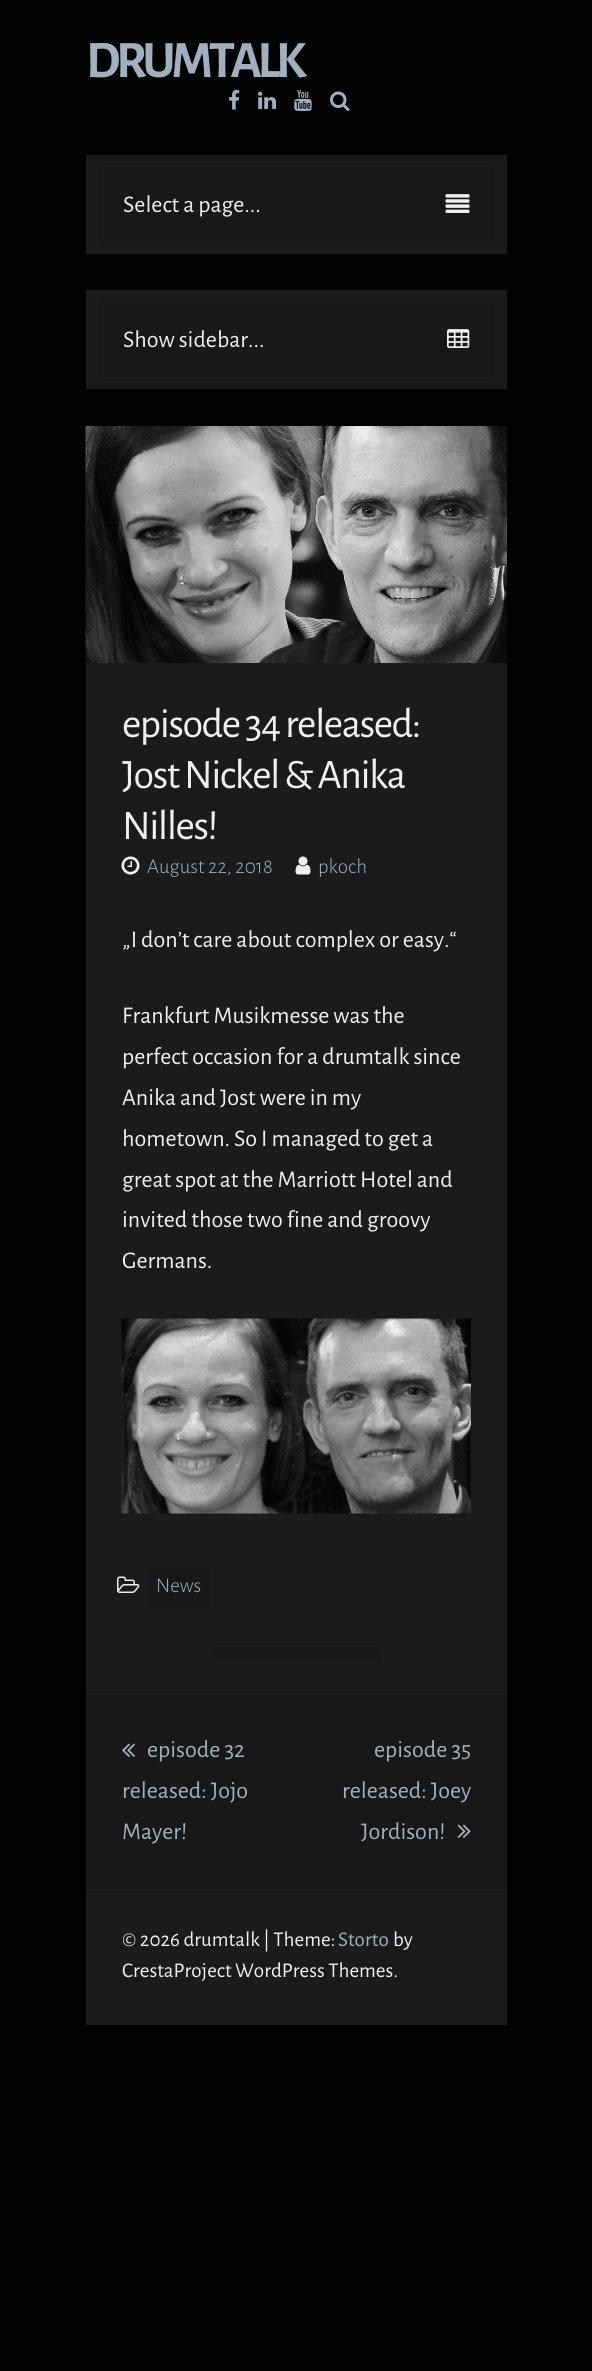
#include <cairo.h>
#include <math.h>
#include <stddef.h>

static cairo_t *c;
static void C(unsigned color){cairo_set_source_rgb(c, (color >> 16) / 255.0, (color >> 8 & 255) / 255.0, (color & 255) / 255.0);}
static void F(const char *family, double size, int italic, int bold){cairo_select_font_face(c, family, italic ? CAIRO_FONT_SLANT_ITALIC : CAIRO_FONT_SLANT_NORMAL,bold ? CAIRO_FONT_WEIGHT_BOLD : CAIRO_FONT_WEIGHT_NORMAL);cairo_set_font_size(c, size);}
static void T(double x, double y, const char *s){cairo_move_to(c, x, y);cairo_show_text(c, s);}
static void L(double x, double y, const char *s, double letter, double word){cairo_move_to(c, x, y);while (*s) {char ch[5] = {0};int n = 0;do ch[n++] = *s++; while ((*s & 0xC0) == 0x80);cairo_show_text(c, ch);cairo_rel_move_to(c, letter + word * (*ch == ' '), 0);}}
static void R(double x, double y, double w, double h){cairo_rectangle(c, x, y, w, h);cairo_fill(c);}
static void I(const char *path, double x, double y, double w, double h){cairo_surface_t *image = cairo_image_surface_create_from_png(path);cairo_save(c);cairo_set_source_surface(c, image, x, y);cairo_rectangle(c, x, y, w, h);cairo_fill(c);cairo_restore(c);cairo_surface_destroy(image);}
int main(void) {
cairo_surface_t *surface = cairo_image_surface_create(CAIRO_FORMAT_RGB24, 592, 2371);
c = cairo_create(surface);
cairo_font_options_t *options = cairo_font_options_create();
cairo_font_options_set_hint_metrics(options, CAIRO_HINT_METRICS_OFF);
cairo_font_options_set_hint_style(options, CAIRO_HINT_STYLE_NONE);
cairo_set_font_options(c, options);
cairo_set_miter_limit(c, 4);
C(0x020202);
cairo_paint(c);
F("Alegreya Sans",52.5,0,1);
C(0xa0b0bf);
L(86,77,"DRUMTALK",-4.5,0);
I("1.png",229,90,11,20);
I("2.png",258,91,18,18);
I("3.png",294,90,18,21);
I("4.png",330,91,20,20);
C(0x1b1b1b);
R(86,155,421,99);
C(0x181818);
R(98,167,397,75);
F("Alegreya Sans",24,0,0);
C(0xefefef);
T(123,212,"Select a page...");
I("5.png",445,194,25,19);
C(0x1b1b1b);
R(86,290,421,99);
C(0x181818);
R(98,302,397,75);
C(0xefefef);
T(123,347,"Show sidebar...");
I("6.png",447,329,23,19);
C(0x1b1b1b);
R(86,663,421,1362);
I("7.png",85,426,422,237);
F("Alegreya Sans",42,0,0);
C(0xefefef);
L(122,737,"episode 34 released:",-1.5,0);
L(122,788,"Jost Nickel & Anika",-1.5,0);
L(122,839,"Nilles!",-1.5,0);
I("8.png",121,856,19,19);
F("Alegreya Sans Light",21,0,0);
C(0xa0b0bf);
T(147,873,"August 22, 2018");
I("9.png",295,856,16,19);
T(318,873,"pkoch");
F("Alegreya Sans",24,0,0);
C(0xefefef);
T(122,947,"„I don’t care about complex or easy.“");
T(122,1023,"Frankfurt Musikmesse was the");
T(122,1064,"perfect occasion for a drumtalk since");
T(122,1105,"Anika and Jost were in my");
T(122,1146,"hometown. So I managed to get a");
T(122,1187,"great spot at the Marriott Hotel and");
T(122,1227,"invited those two fine and groovy");
T(122,1268,"Germans.");
I("10.png",121,1318,350,196);
I("11.png",117,1576,23,17);
C(0x181818);
R(147,1568,63,40);
F("Alegreya Sans Light",21,0,0);
C(0xa0b0bf);
T(156,1592,"News");
C(0x181818);
R(212,1647,169,12);
R(86,1695,421,194);
I("12.png",122,1743,13,14);
F("Alegreya Sans",24,0,0);
C(0xa0b0bf);
T(147,1757,"episode 32");
T(122,1798,"released: Jojo");
T(122,1839,"Mayer!");
T(374,1757,"episode 35");
T(342,1798,"released: Joey");
T(361,1839,"Jordison!");
I("13.png",457,1824,14,14);
F("Alegreya Sans",21,0,0);
C(0xefefef);
T(122,1946,"© 2026 drumtalk | Theme:");
C(0xa0b0bf);
T(338,1946,"Storto");
C(0xefefef);
T(393,1946,"by");
T(122,1977,"CrestaProject WordPress Themes.");
cairo_surface_write_to_png(surface, "o.png");
cairo_font_options_destroy(options);
cairo_destroy(c);
cairo_surface_destroy(surface);
return 0;
}
